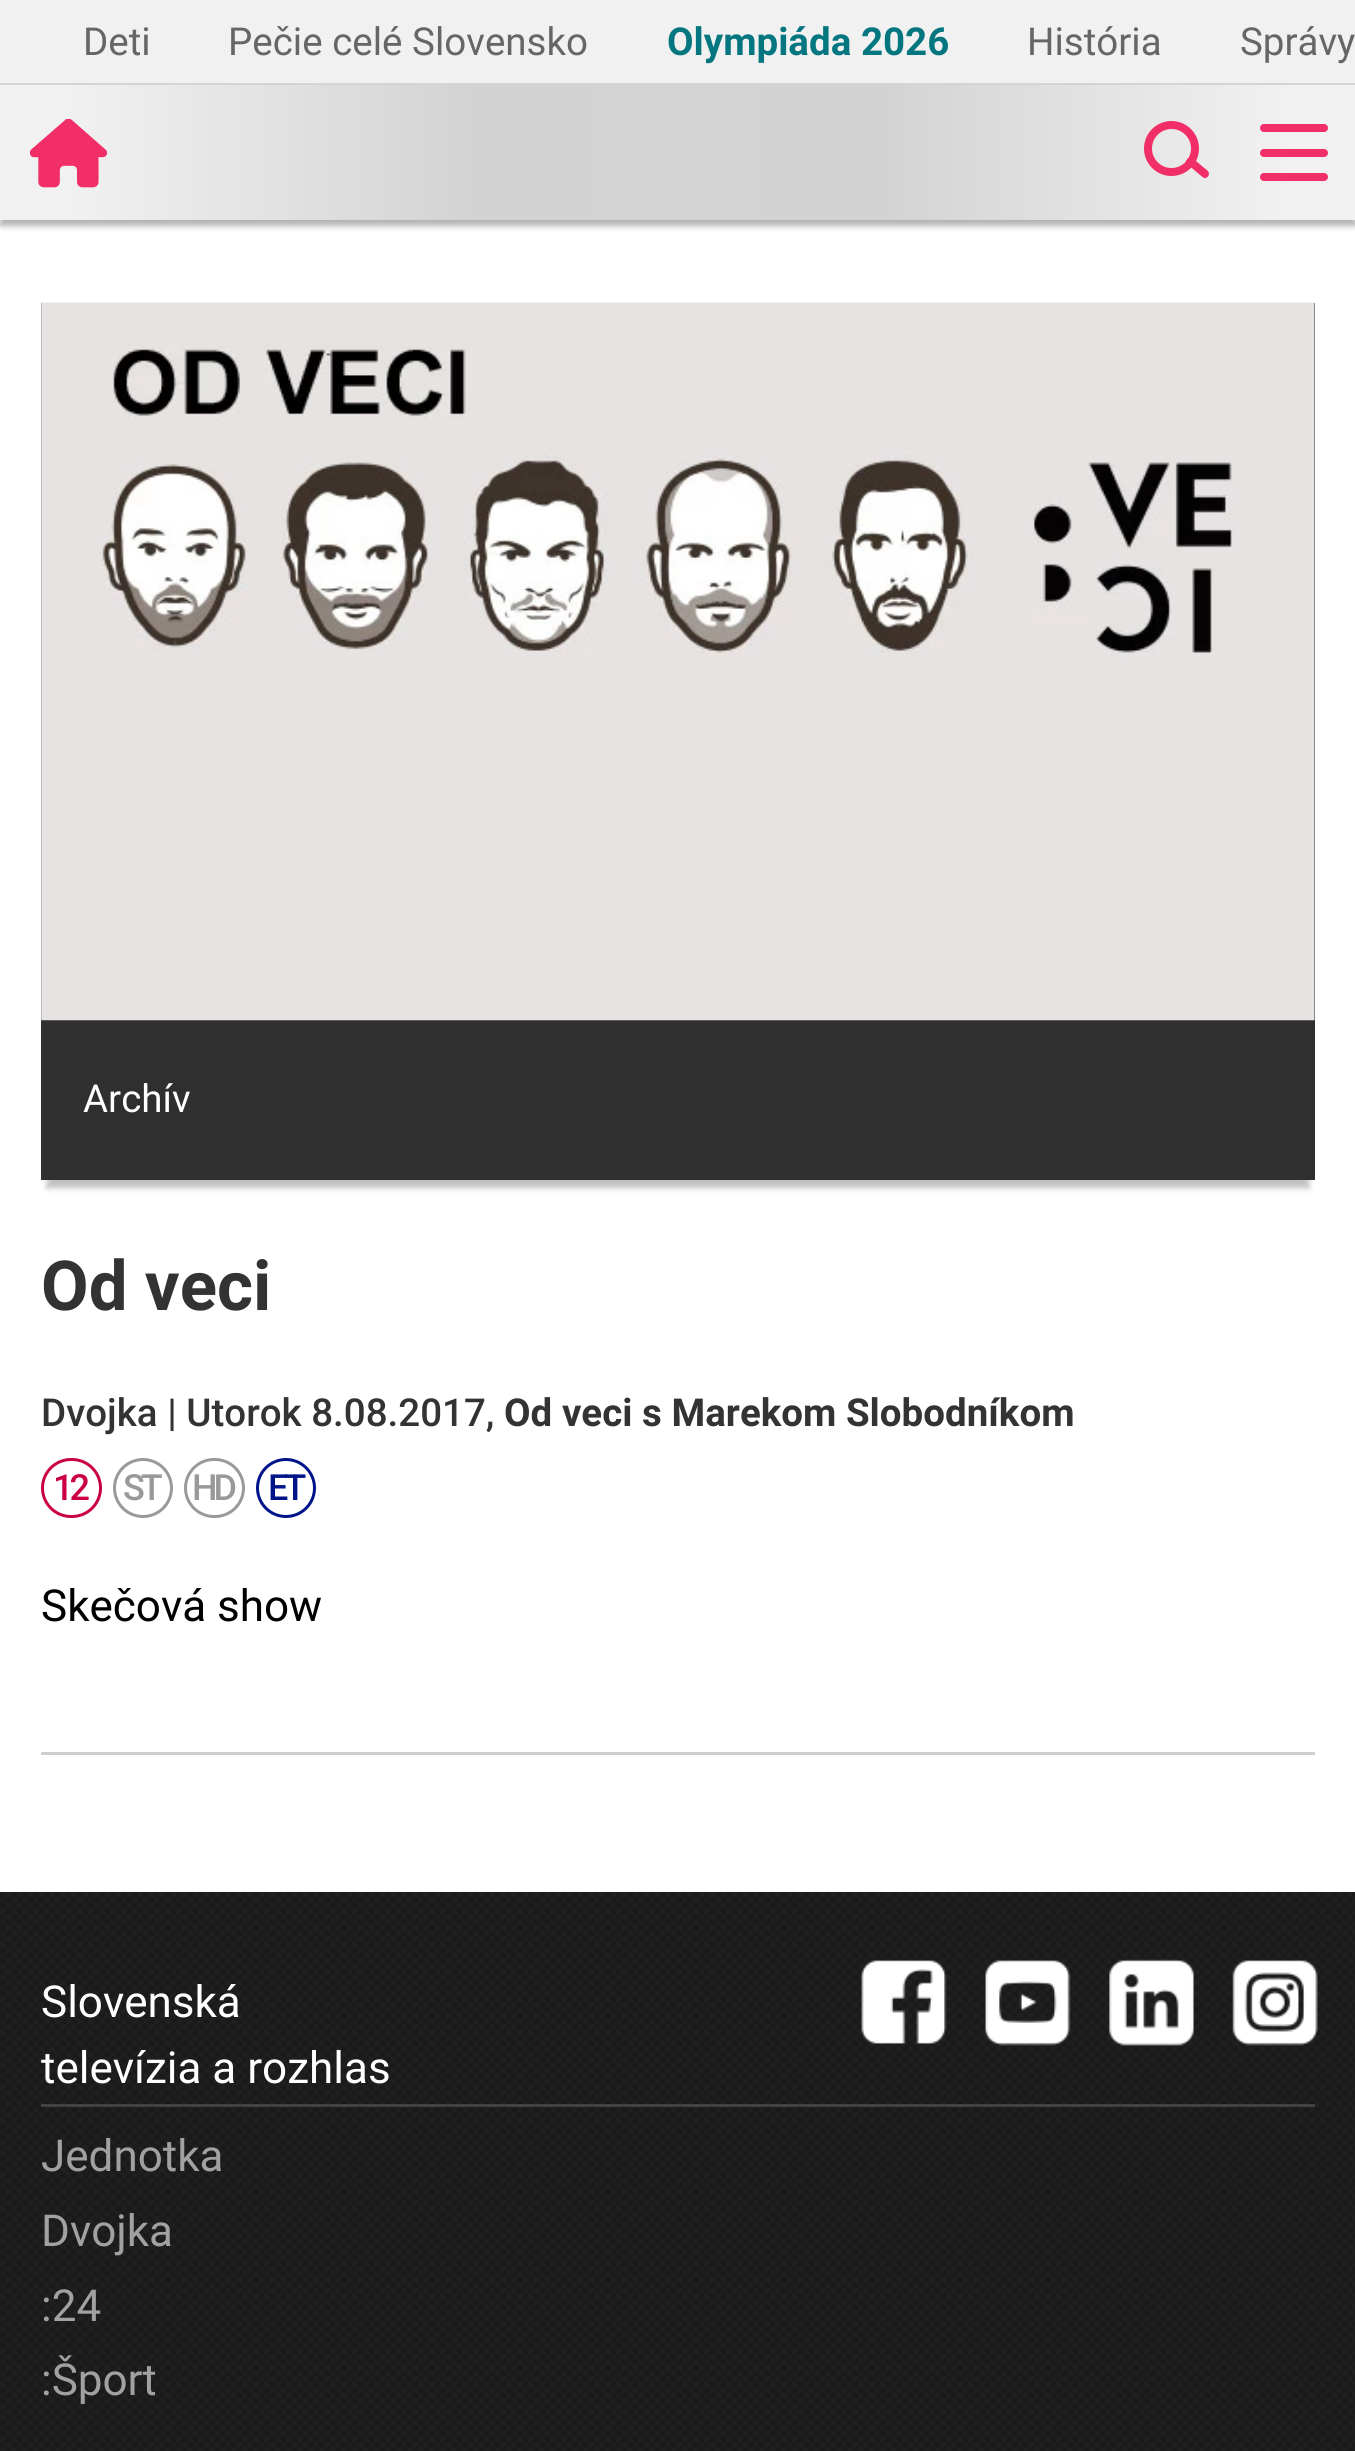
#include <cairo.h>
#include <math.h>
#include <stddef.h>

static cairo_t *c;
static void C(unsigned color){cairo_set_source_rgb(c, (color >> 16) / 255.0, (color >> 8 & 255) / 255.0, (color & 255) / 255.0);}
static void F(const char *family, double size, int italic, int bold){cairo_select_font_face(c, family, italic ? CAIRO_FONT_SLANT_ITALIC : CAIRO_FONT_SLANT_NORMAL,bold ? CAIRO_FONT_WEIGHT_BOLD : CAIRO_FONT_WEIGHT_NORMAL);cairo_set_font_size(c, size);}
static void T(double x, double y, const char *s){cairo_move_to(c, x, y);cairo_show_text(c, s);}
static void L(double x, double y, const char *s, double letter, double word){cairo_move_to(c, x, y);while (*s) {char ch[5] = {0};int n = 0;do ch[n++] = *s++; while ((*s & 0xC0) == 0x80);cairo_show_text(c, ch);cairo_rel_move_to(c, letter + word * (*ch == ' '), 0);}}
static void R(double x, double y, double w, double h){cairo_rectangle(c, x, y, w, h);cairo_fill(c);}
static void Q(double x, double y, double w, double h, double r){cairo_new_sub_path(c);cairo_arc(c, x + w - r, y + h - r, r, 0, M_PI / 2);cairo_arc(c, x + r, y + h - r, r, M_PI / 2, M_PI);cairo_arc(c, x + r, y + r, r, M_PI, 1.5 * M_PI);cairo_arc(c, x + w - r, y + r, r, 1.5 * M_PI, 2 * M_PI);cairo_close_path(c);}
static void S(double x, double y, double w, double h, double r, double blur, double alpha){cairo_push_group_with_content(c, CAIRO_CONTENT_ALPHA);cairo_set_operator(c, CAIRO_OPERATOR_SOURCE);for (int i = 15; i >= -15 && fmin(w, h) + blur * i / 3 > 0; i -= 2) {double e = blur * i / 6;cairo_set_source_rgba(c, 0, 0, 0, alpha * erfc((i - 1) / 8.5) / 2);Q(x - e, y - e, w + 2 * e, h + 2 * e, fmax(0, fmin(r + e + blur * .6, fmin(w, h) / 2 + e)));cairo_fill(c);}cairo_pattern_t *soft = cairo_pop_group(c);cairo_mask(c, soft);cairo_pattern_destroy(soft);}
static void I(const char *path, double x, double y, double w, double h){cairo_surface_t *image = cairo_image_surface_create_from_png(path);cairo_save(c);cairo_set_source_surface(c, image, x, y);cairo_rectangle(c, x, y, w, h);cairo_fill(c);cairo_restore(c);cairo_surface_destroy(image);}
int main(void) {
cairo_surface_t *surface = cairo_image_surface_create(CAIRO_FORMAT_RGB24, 1355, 2451);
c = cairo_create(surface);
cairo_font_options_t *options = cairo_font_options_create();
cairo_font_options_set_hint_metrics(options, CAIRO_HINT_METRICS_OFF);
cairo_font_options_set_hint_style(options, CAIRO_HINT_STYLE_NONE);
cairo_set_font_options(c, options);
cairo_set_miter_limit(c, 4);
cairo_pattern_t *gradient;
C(0xffffff);
cairo_paint(c);
C(0xf1f1f1);
R(0,0,1355,83);
C(0xd4d4d4);
R(0,83,1355,2);
F("Roboto",38.5,0,0);
C(0x666666);
T(83,55,"Deti");
T(228,55,"Pečie celé Slovensko");
F("Roboto",38.5,0,1);
C(0x037680);
T(667,55,"Olympiáda 2026");
F("Roboto",38.5,0,0);
C(0x666666);
T(1027,55,"História");
T(1240,55,"Správy");
C(0x000000);
S(0,91,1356,135,0,3,.3);
gradient = cairo_pattern_create_linear(0,153,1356,153);
cairo_pattern_add_color_stop_rgba(gradient,.05,0.945,0.945,0.945,1);
cairo_pattern_add_color_stop_rgba(gradient,.35,0.827,0.827,0.827,1);
cairo_pattern_add_color_stop_rgba(gradient,.5,0.831,0.831,0.831,1);
cairo_pattern_add_color_stop_rgba(gradient,.65,0.827,0.827,0.827,1);
cairo_pattern_add_color_stop_rgba(gradient,.95,0.945,0.945,0.945,1);
cairo_set_source(c,gradient);
cairo_pattern_destroy(gradient);
R(0,85,1355,135);
I("1.png",30,119,78,69);
cairo_arc(c,1171.5,148.5,23.5,0,2 * M_PI);
C(0xf12e68);
cairo_set_line_width(c,8);
cairo_stroke(c);
cairo_new_path(c);
cairo_move_to(c,1193,158.5);
cairo_line_to(c,1202.5,166.5);
cairo_curve_to(c,1204.5,168.5,1207.5,170,1208.5,172);
cairo_curve_to(c,1210.5,176,1205.5,180,1202.5,177);
cairo_line_to(c,1187,164);
cairo_curve_to(c,1184,160.5,1189,155.5,1193,158.5);
cairo_close_path(c);
cairo_fill(c);
Q(1260,124,68,8,4);
cairo_fill(c);
Q(1260,149,68,8,4);
cairo_fill(c);
Q(1260,173,68,8,4);
cairo_fill(c);
C(0x000000);
S(47,322,1262,866,0,3,.25);
C(0x2f2f2f);
R(41,303,1274,877);
I("2.png",41,302,1274,719);
C(0xffffff);
T(83,1112,"Archív");
C(0xcfcfcf);
R(41,1752,1274,3);
F("Roboto",69,0,1);
C(0x333333);
T(41,1310,"Od veci");
F("Roboto Medium",38.5,0,0);
T(41,1426,"Dvojka | Utorok 8.08.2017,");
F("Roboto",38.5,0,1);
T(504,1426,"Od veci s Marekom Slobodníkom");
Q(42.5,1459.5,58,57,28.5);
C(0xcb0044);
cairo_set_line_width(c,3);
cairo_stroke(c);
F("Roboto Medium",36,0,0);
L(53,1500,"12",-4,0);
cairo_new_path(c);
cairo_arc(c,143,1488,28.5,0,2 * M_PI);
C(0x999999);
cairo_stroke(c);
L(123,1500,"ST",-4,0);
Q(185.5,1459.5,58,57,28.5);
cairo_stroke(c);
L(192,1500,"HD",-4,0);
cairo_new_path(c);
cairo_arc(c,286,1488,28.5,0,2 * M_PI);
C(0x001489);
cairo_stroke(c);
L(268,1500,"ET",-4,0);
F("Roboto",44,0,0);
C(0x000000);
T(41,1621,"Skečová show");
I("3.png",0,1892,1355,559);
C(0xffffff);
T(41,2017,"Slovenská");
T(41,2083,"televízia a rozhlas");
I("4.png",861,1960,86,84);
I("5.png",985,1960,86,86);
I("6.png",1109,1959,85,87);
I("7.png",1232,1960,86,86);
C(0x424242);
R(41,2104,1274,3);
C(0xa1a1a1);
T(41,2171,"Jednotka");
T(41,2246,"Dvojka");
T(41,2321,":24");
T(41,2395,":Šport");
cairo_surface_write_to_png(surface, "o.png");
cairo_font_options_destroy(options);
cairo_destroy(c);
cairo_surface_destroy(surface);
return 0;
}
